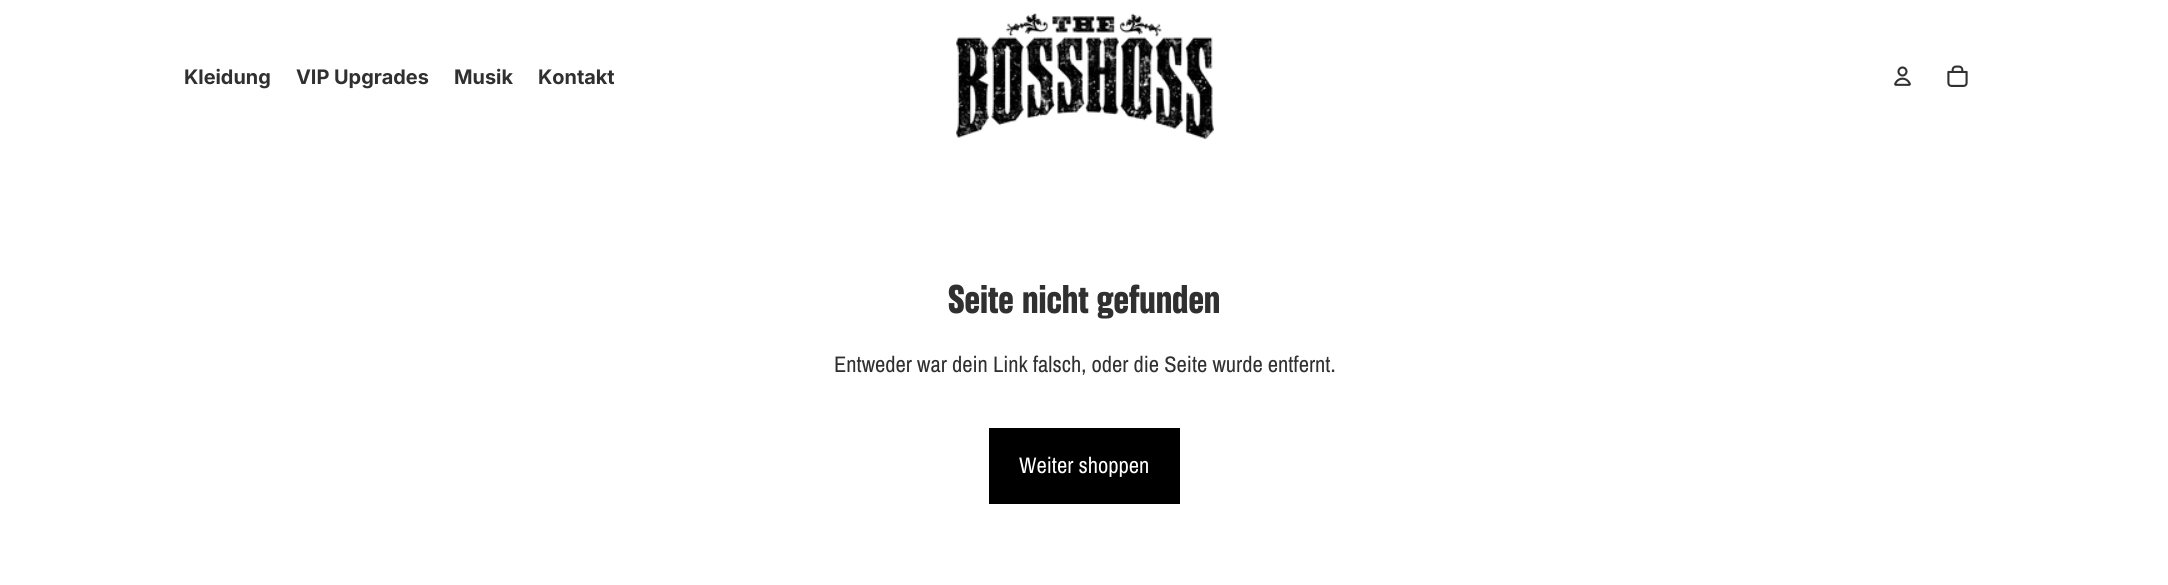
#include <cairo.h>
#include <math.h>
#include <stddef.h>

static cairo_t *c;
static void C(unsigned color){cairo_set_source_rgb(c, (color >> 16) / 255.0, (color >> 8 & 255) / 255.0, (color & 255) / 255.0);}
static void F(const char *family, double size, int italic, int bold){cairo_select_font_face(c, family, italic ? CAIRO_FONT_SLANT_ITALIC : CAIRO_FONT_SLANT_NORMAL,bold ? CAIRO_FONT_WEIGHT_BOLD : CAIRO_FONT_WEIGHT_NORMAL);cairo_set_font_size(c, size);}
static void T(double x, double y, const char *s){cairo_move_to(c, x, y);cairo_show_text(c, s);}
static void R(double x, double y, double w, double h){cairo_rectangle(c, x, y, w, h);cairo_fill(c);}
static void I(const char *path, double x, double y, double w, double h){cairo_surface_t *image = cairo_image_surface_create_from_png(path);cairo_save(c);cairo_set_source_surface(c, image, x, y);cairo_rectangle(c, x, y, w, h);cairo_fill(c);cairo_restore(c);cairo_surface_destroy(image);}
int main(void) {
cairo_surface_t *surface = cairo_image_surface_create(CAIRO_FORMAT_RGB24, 2168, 585);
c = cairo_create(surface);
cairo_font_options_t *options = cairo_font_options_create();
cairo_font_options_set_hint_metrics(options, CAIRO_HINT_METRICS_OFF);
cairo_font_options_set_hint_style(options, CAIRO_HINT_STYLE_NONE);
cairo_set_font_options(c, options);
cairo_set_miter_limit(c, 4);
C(0xffffff);
cairo_paint(c);
F("Inter",20,0,1);
C(0x303030);
T(184,84,"Kleidung");
T(296,84,"VIP Upgrades");
T(454,84,"Musik");
T(538,84,"Kontakt");
I("1.png",956,13,258,126);
I("2.png",1894,66,17,20);
I("3.png",1947,65,21,22);
F("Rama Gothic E",40,0,1);
T(948,313,"Seite nicht gefunden");
F("Archivo Narrow",22.5,0,0);
T(834,372,"Entweder war dein Link falsch, oder die Seite wurde entfernt.");
C(0x000000);
R(989,428,191,76);
C(0xffffff);
T(1019,473,"Weiter shoppen");
cairo_surface_write_to_png(surface, "o.png");
cairo_font_options_destroy(options);
cairo_destroy(c);
cairo_surface_destroy(surface);
return 0;
}
